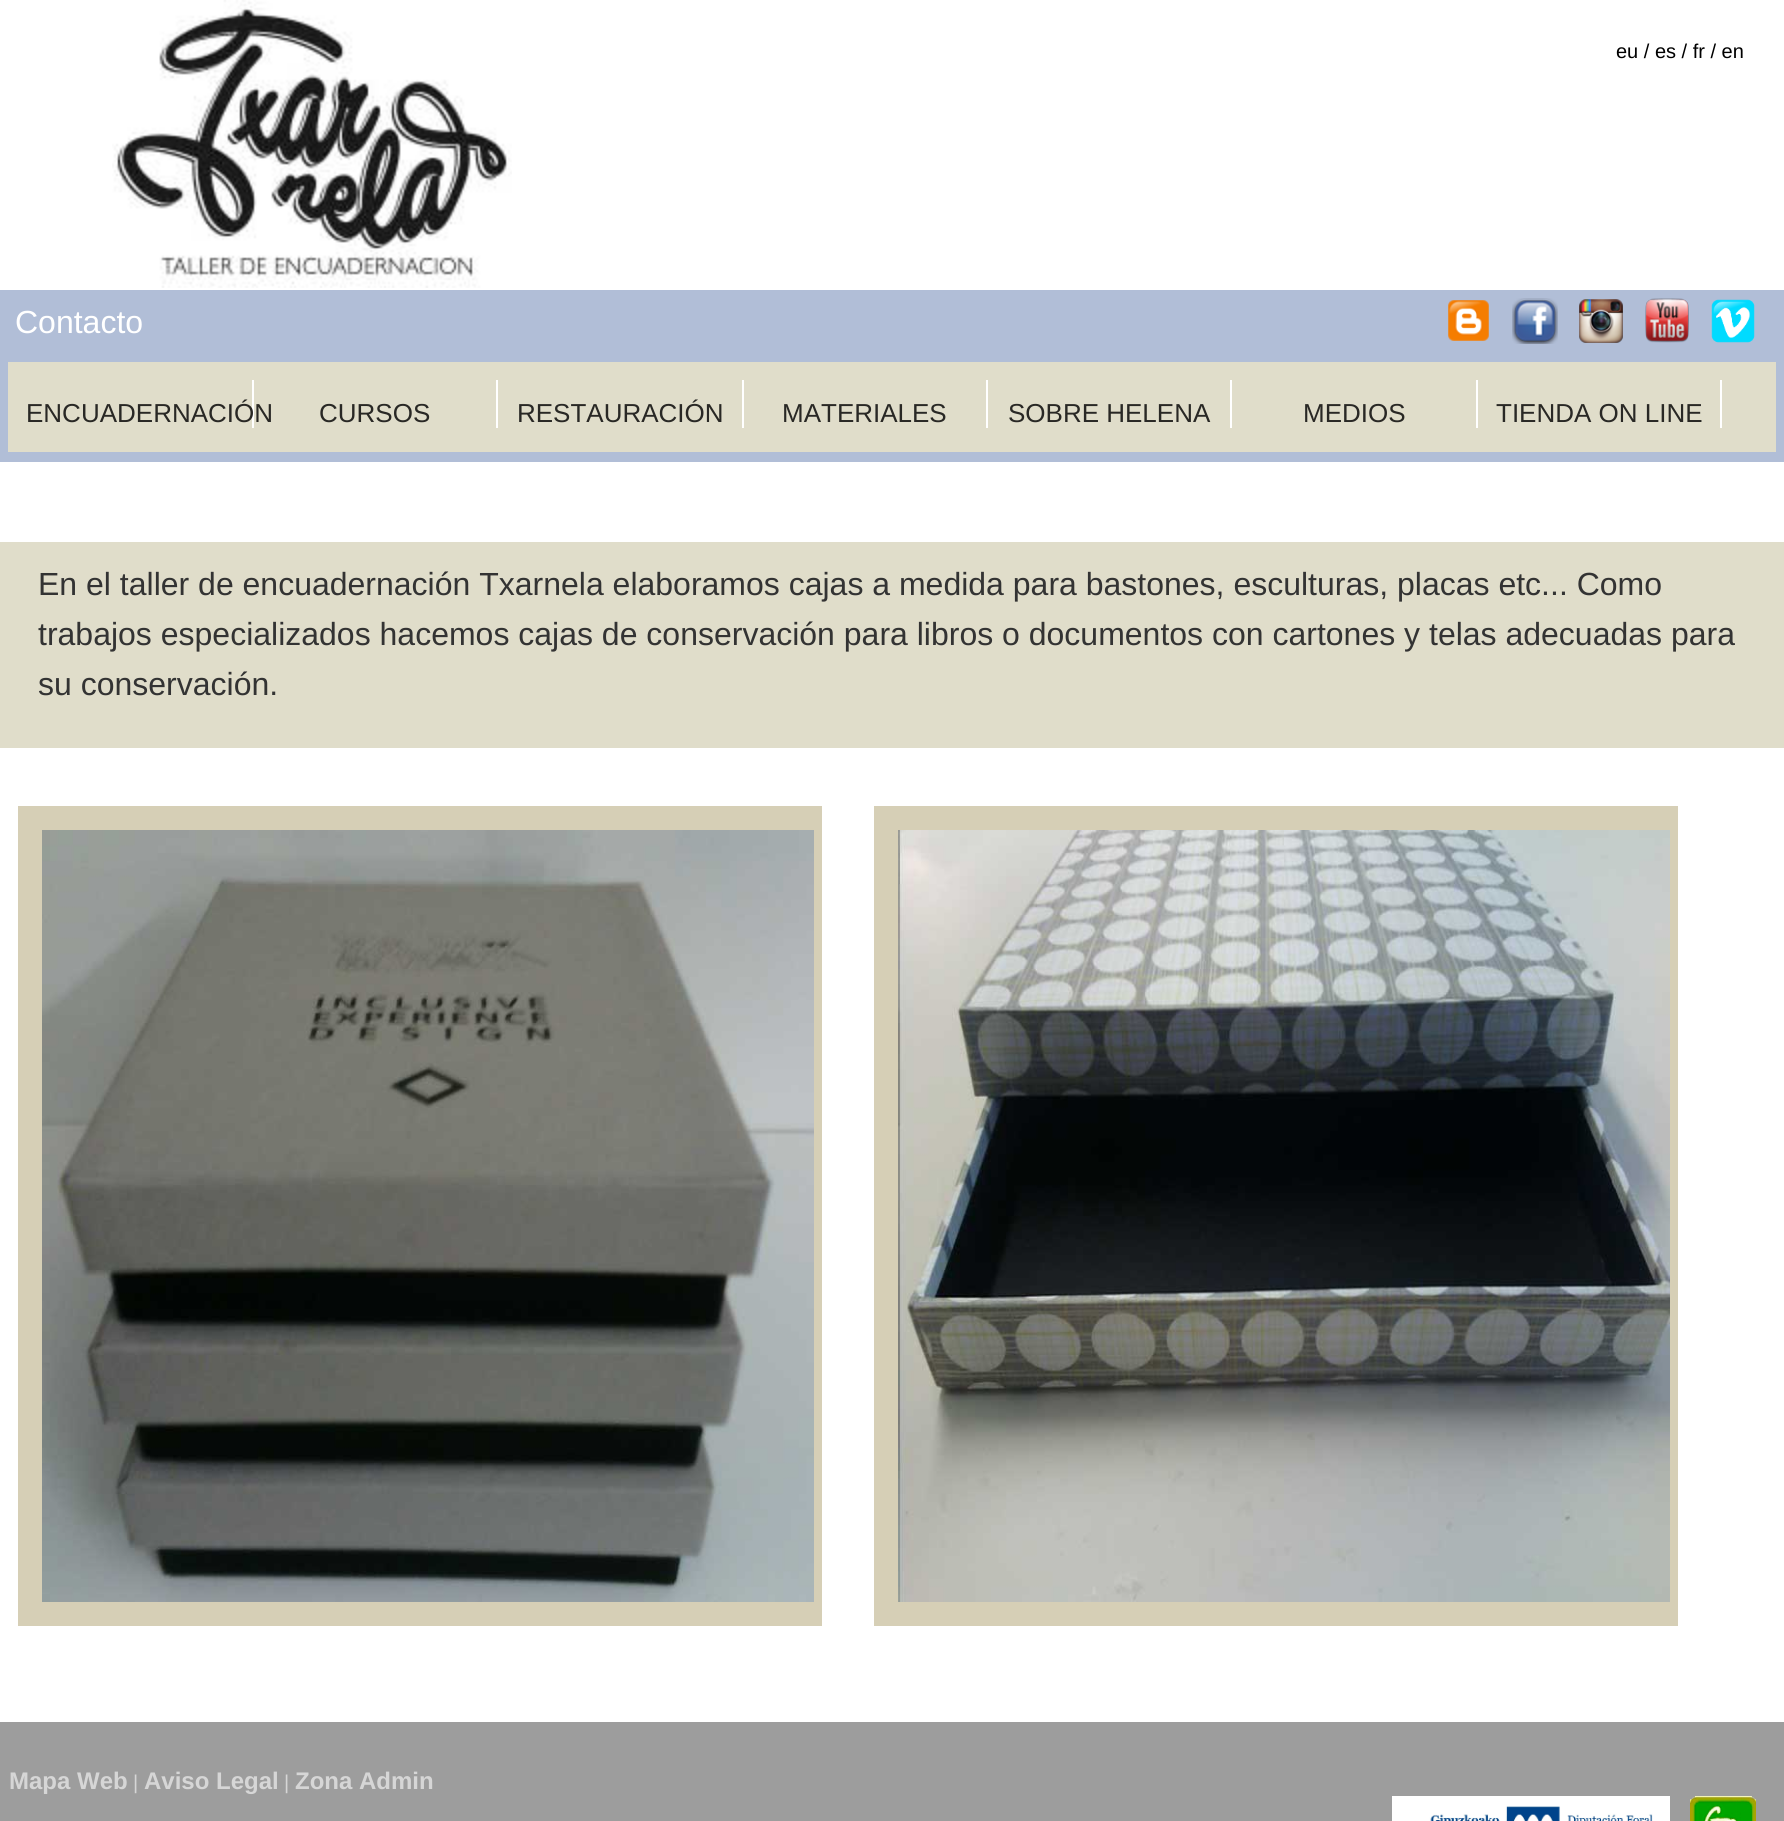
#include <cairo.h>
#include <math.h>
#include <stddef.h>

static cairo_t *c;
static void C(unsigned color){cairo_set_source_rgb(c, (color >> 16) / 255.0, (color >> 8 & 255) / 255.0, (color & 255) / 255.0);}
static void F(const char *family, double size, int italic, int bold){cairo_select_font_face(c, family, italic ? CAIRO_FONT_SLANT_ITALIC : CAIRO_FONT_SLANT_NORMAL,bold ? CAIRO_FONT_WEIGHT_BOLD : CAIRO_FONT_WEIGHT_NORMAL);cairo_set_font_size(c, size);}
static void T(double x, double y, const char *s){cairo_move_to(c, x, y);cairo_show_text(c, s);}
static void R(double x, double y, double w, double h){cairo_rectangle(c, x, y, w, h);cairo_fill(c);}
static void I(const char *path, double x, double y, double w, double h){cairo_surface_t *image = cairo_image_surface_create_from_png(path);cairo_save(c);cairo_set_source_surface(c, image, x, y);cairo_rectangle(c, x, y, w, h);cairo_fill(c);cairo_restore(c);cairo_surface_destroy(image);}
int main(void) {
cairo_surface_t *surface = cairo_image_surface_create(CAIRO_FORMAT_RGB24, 1784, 1821);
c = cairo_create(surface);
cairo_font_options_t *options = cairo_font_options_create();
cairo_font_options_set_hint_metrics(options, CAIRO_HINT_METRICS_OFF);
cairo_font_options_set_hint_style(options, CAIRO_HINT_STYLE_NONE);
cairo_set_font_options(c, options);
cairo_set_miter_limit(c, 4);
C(0xffffff);
cairo_paint(c);
I("1.png",112,0,400,288);
F("Liberation Sans",20,0,0);
C(0x000000);
T(1616,58,"eu / es / fr / en");
C(0xb1bed7);
R(0,290,1784,172);
F("Liberation Sans",32,0,0);
C(0xffffff);
T(15,333,"Contacto");
I("2.png",1448,300,41,41);
I("3.png",1512,298,46,46);
I("4.png",1579,299,44,44);
I("5.png",1645,298,44,45);
I("6.png",1711,299,44,44);
C(0xe0ddca);
R(8,362,1768,90);
C(0xffffff);
R(252,380,2,48);
F("Liberation Sans",26,0,0);
C(0x292825);
T(26,422,"ENCUADERNACIÓN");
C(0xffffff);
R(496,380,2,48);
C(0x292825);
T(319,422,"CURSOS");
C(0xffffff);
R(742,380,2,48);
C(0x292825);
T(517,422,"RESTAURACIÓN");
C(0xffffff);
R(986,380,2,48);
C(0x292825);
T(782,422,"MATERIALES");
C(0xffffff);
R(1230,380,2,48);
C(0x292825);
T(1008,422,"SOBRE HELENA");
C(0xffffff);
R(1476,380,2,48);
C(0x292825);
T(1303,422,"MEDIOS");
C(0xffffff);
R(1720,380,2,48);
C(0x292825);
T(1496,422,"TIENDA ON LINE");
C(0xe0ddca);
R(0,542,1784,206);
F("Liberation Sans",32,0,0);
C(0x333333);
T(38,595,"En el taller de encuadernación Txarnela elaboramos cajas a medida para bastones, esculturas, placas etc... Como");
T(38,645,"trabajos especializados hacemos cajas de conservación para libros o documentos con cartones y telas adecuadas para");
T(38,695,"su conservación.");
C(0xd6cfb6);
R(18,806,804,820);
I("7.png",42,830,772,772);
R(874,806,804,820);
I("8.png",898,830,772,772);
C(0x9d9d9d);
R(0,1722,1784,99);
F("Liberation Sans",24,0,1);
C(0xd6d6d6);
T(9,1789,"Mapa Web");
F("Liberation Sans",20,0,0);
T(133,1789,"|");
F("Liberation Sans",24,0,1);
T(144,1789,"Aviso Legal");
F("Liberation Sans",20,0,0);
T(284,1789,"|");
F("Liberation Sans",24,0,1);
T(295,1789,"Zona Admin");
I("9.png",1392,1796,278,25);
I("10.png",1690,1796,66,25);
cairo_surface_write_to_png(surface, "o.png");
cairo_font_options_destroy(options);
cairo_destroy(c);
cairo_surface_destroy(surface);
return 0;
}
